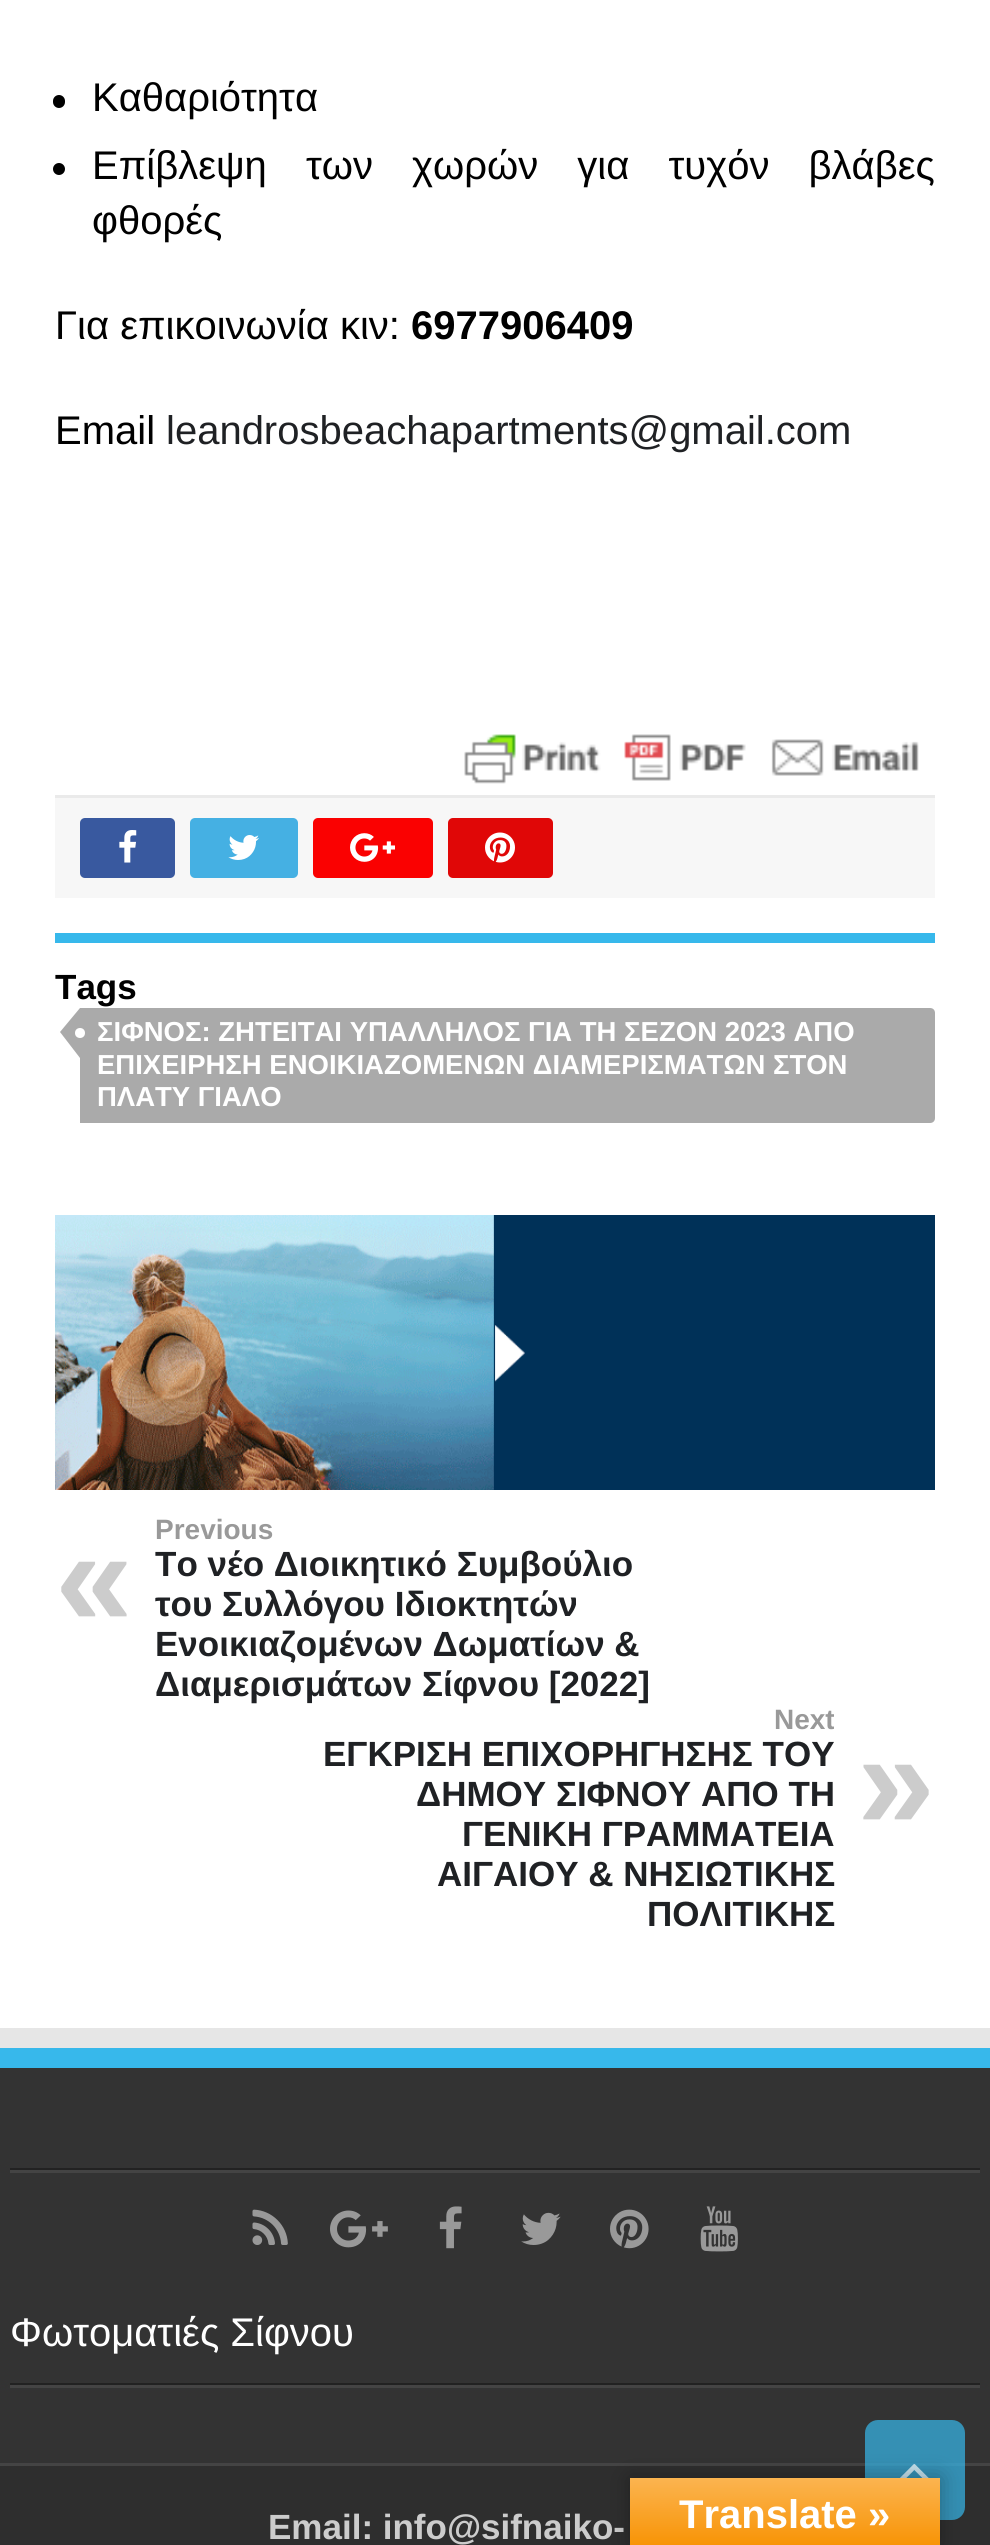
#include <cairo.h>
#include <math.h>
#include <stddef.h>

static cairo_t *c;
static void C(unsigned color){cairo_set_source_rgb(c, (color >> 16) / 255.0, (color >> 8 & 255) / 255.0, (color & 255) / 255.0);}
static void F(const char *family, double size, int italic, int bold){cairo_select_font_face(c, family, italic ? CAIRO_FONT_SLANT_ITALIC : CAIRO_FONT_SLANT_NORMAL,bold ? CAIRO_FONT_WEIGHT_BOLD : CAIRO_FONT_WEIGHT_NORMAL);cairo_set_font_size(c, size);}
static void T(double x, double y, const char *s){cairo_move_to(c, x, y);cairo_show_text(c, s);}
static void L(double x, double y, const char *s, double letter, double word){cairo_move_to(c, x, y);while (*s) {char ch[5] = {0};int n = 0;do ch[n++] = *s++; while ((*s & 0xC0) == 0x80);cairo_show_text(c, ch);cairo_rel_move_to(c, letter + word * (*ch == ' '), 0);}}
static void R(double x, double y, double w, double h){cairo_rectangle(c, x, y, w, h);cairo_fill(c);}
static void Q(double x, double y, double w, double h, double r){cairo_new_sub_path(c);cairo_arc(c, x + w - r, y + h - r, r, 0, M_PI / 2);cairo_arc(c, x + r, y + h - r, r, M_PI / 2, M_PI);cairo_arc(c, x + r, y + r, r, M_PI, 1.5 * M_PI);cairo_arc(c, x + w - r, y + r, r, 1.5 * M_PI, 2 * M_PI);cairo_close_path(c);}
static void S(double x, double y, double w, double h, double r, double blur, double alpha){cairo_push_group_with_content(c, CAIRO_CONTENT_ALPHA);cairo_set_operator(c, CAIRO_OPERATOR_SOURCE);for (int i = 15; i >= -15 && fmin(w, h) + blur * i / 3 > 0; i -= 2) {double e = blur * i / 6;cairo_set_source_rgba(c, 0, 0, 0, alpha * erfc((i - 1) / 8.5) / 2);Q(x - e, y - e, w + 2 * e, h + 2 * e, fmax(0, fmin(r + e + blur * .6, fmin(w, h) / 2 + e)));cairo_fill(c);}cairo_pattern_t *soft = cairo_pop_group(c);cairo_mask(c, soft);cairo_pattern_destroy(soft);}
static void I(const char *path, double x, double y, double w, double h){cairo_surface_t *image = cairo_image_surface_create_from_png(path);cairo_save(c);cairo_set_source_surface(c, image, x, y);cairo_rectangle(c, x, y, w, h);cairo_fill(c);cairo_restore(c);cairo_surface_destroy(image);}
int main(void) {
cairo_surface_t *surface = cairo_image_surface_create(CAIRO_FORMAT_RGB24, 990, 2545);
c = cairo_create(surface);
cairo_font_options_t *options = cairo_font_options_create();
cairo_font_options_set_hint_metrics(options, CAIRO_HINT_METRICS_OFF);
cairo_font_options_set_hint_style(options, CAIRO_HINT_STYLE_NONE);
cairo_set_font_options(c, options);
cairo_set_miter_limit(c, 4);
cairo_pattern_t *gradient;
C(0xffffff);
cairo_paint(c);
C(0x37b8eb);
R(55,933,880,10);
C(0x000000);
Q(53,95,12,13,6);
cairo_fill(c);
F("Liberation Sans",40,0,0);
T(92,111,"Καθαριότητα");
cairo_new_path(c);
cairo_arc(c,59,169,6,0,2 * M_PI);
cairo_fill(c);
L(92,179,"Επίβλεψη των χωρών για τυχόν βλάβες",0,28);
T(92,234,"φθορές");
T(55,339,"Για επικοινωνία κιν:");
F("Liberation Sans",40,0,1);
T(411,339,"6977906409");
F("Liberation Sans",40,0,0);
T(55,444,"Email");
C(0x1f2124);
T(166,444,"leandrosbeachapartments@gmail.com");
I("1.png",464,734,455,50);
C(0xf7f7f7);
R(55,798,880,100);
C(0xeaeaea);
R(55,795,880,3);
C(0x39599f);
Q(80,818,95,60,5);
cairo_fill(c);
I("2.png",119,830,18,33);
C(0x45b0e3);
Q(190,818,108,60,5);
cairo_fill(c);
I("3.png",228,835,31,25);
C(0xfa0101);
Q(313,818,120,60,5);
cairo_fill(c);
I("4.png",350,833,45,29);
C(0xe00707);
Q(448,818,105,60,5);
cairo_fill(c);
I("5.png",485,832,30,31);
F("Liberation Sans",35,0,1);
C(0x000000);
T(55,999,"Tags");
C(0xaaaaaa);
cairo_new_path(c);
cairo_move_to(c,80,1008);
cairo_line_to(c,930,1008);
cairo_curve_to(c,933,1008,935,1010,935,1013);
cairo_line_to(c,935,1118);
cairo_curve_to(c,935,1121,933,1123,930,1123);
cairo_line_to(c,80,1123);
cairo_close_path(c);
cairo_fill(c);
cairo_new_path(c);
cairo_move_to(c,80,1008);
cairo_line_to(c,80,1058);
cairo_line_to(c,60,1032);
cairo_close_path(c);
cairo_fill(c);
F("Liberation Sans",27.5,0,1);
C(0xffffff);
T(97,1041,"ΣΙΦΝΟΣ: ΖΗΤΕΙΤΑΙ ΥΠΑΛΛΗΛΟΣ ΓΙΑ ΤΗ ΣΕΖΟΝ 2023 ΑΠΟ");
cairo_new_path(c);
cairo_arc(c,80,1033,5,0,2 * M_PI);
cairo_fill(c);
T(97,1074,"ΕΠΙΧΕΙΡΗΣΗ ΕΝΟΙΚΙΑΖΟΜΕΝΩΝ ΔΙΑΜΕΡΙΣΜΑΤΩΝ ΣΤΟΝ");
T(97,1106,"ΠΛΑΤΥ ΓΙΑΛΟ");
I("6.png",55,1215,880,275);
F("Liberation Sans",28,0,1);
C(0x999999);
T(155,1539,"Previous");
F("Liberation Sans",140,0,1);
C(0xcccccc);
T(55,1626,"«");
F("Liberation Sans",35,0,1);
C(0x1f2124);
T(155,1576,"Το νέο Διοικητικό Συμβούλιο");
T(155,1616,"του Συλλόγου Ιδιοκτητών");
T(155,1656,"Ενοικιαζομένων Δωματίων &");
T(155,1696,"Διαμερισμάτων Σίφνου [2022]");
F("Liberation Sans",28,0,1);
C(0x999999);
T(774,1729,"Next");
F("Liberation Sans",35,0,1);
C(0x1f2124);
T(323,1766,"ΕΓΚΡΙΣΗ ΕΠΙΧΟΡΗΓΗΣΗΣ ΤΟΥ");
T(416,1806,"ΔΗΜΟΥ ΣΙΦΝΟΥ ΑΠΟ ΤΗ");
F("Liberation Sans",140,0,1);
C(0xcccccc);
T(857,1829,"»");
F("Liberation Sans",35,0,1);
C(0x1f2124);
T(462,1846,"ΓΕΝΙΚΗ ΓΡΑΜΜΑΤΕΙΑ");
T(437,1886,"ΑΙΓΑΙΟΥ & ΝΗΣΙΩΤΙΚΗΣ");
T(647,1926,"ΠΟΛΙΤΙΚΗΣ");
C(0xe6e6e6);
R(0,2028,990,20);
C(0x333333);
R(0,2068,990,395);
C(0x37b8eb);
R(0,2048,990,20);
C(0x222222);
R(10,2168,970,2);
C(0x444444);
R(10,2170,970,3);
I("7.png",252,2209,36,36);
I("8.png",330,2210,58,38);
I("9.png",439,2206,23,43);
I("10.png",521,2212,40,33);
I("11.png",610,2209,39,40);
I("12.png",700,2206,38,46);
C(0x222222);
R(10,2383,970,2);
F("Liberation Sans",40,0,0);
C(0xffffff);
T(10,2346,"Φωτοματιές Σίφνου");
C(0x444444);
R(10,2385,970,3);
C(0x2e2e2e);
R(0,2466,990,79);
C(0x444444);
R(0,2463,990,3);
F("Liberation Sans",35,0,1);
C(0xcccccc);
T(268,2539,"Email: info@sifnaiko-");
cairo_set_source_rgba(c,0.216,0.722,0.922,0.7);
Q(865,2420,100,100,13);
cairo_fill(c);
I("13.png",900,2464,29,14);
C(0x000000);
S(630,2478,310,67,0,11,.3);
gradient = cairo_pattern_create_linear(785,2478,785,2545);
cairo_pattern_add_color_stop_rgba(gradient,0,0.984,0.706,0.314,1);
cairo_pattern_add_color_stop_rgba(gradient,1,0.973,0.58,0.024,1);
cairo_set_source(c,gradient);
cairo_pattern_destroy(gradient);
R(630,2478,310,67);
F("Liberation Sans",40,0,1);
C(0xffffff);
T(679,2528,"Translate »");
cairo_surface_write_to_png(surface, "o.png");
cairo_font_options_destroy(options);
cairo_destroy(c);
cairo_surface_destroy(surface);
return 0;
}
